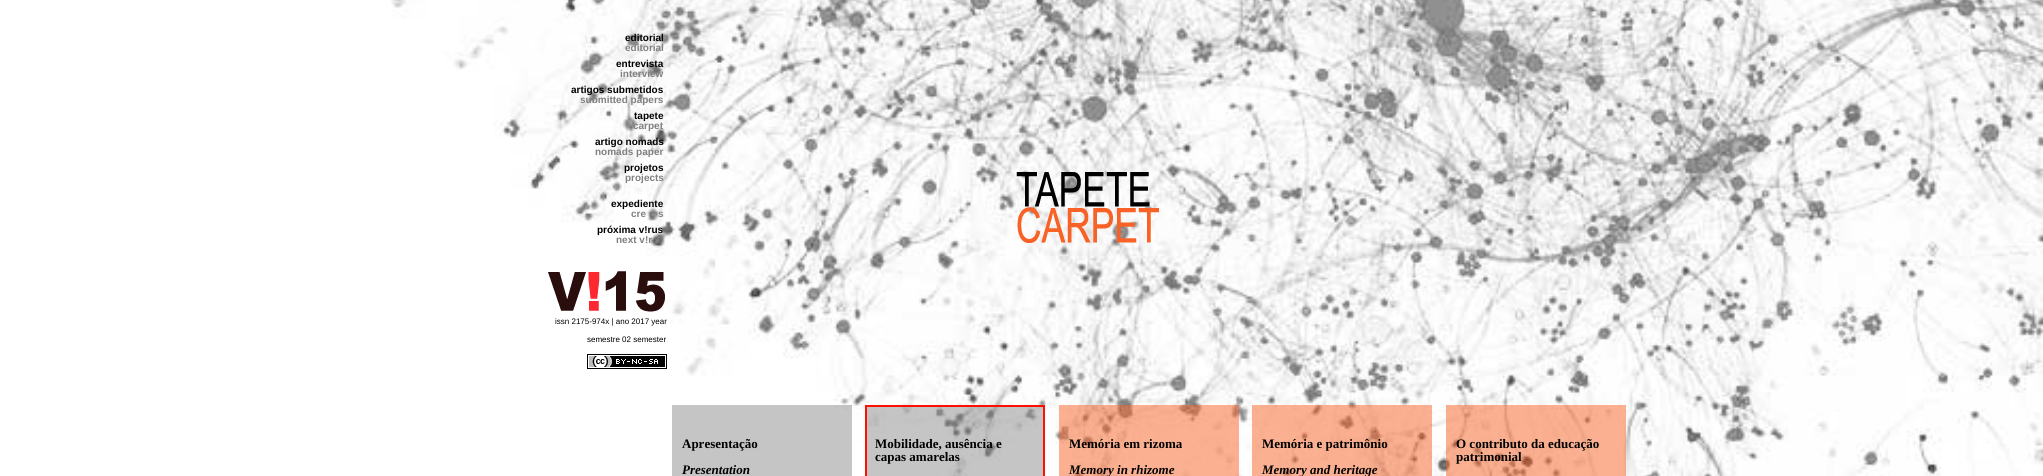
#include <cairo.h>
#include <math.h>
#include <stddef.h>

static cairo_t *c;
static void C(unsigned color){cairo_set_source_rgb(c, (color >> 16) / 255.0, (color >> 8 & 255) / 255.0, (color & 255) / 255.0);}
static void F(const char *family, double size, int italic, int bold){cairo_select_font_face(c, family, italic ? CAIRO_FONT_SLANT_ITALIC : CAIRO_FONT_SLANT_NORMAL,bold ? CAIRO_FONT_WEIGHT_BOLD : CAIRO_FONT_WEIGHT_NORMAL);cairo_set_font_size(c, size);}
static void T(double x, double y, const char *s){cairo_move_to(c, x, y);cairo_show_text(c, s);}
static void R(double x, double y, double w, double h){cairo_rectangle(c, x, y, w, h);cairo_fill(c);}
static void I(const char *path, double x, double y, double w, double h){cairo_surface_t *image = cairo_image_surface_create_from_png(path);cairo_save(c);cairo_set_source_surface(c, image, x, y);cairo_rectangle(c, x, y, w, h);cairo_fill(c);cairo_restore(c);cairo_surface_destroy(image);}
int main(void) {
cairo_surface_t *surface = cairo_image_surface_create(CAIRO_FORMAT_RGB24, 2043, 476);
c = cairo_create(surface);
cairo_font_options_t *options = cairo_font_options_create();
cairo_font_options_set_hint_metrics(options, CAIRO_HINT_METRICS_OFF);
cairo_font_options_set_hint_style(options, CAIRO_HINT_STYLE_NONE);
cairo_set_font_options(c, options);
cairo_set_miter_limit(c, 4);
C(0xffffff);
cairo_paint(c);
I("1.png",391,0,1652,476);
F("Liberation Sans",10,0,1);
C(0x000000);
T(625,41,"editorial");
C(0x808080);
T(625,51,"editorial");
C(0x000000);
T(616,67,"entrevista");
C(0x808080);
T(620,77,"interview");
C(0x000000);
T(571,93,"artigos submetidos");
C(0x808080);
T(580,103,"submitted papers");
C(0x000000);
T(634,119,"tapete");
C(0x808080);
T(633,129,"carpet");
C(0x000000);
T(595,145,"artigo nomads");
C(0x808080);
T(595,155,"nomads paper");
C(0x000000);
T(624,171,"projetos");
C(0x808080);
T(625,181,"projects");
C(0x000000);
T(611,207,"expediente");
C(0x808080);
T(631,217,"cre");
T(658,217,"s");
C(0x000000);
T(597,233,"próxima v!rus");
C(0x808080);
T(616,243,"next v!r");
I("2.png",548,271,117,41);
F("Liberation Sans",8,0,0);
C(0x000000);
T(555,324,"issn 2175-974x | ano 2017 year");
T(587,342,"semestre 02 semester");
I("3.png",587,354,80,15);
I("4.png",1016,172,143,71);
cairo_set_source_rgba(c,0.553,0.553,0.553,0.5);
R(672,405,180,71);
F("Liberation Serif",13,0,1);
C(0x000000);
T(682,448,"Apresentação");
F("Liberation Serif",13,1,1);
T(682,474,"Presentation");
cairo_set_source_rgba(c,0.553,0.553,0.553,0.5);
cairo_rectangle(c,866,406,178,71);
cairo_fill_preserve(c);
C(0xff0f00);
cairo_stroke(c);
F("Liberation Serif",13,0,1);
C(0x000000);
T(875,448,"Mobilidade, ausência e");
T(875,461,"capas amarelas");
cairo_set_source_rgba(c,0.976,0.384,0.145,0.5);
R(1059,405,180,71);
C(0x000000);
T(1069,448,"Memória em rizoma");
F("Liberation Serif",13,1,1);
T(1069,474,"Memory in rhizome");
cairo_set_source_rgba(c,0.976,0.384,0.145,0.5);
R(1252,405,180,71);
F("Liberation Serif",13,0,1);
C(0x000000);
T(1262,448,"Memória e patrimônio");
F("Liberation Serif",13,1,1);
T(1262,474,"Memory and heritage");
cairo_set_source_rgba(c,0.976,0.384,0.145,0.5);
R(1446,405,180,71);
F("Liberation Serif",13,0,1);
C(0x000000);
T(1456,448,"O contributo da educação");
T(1456,461,"patrimonial");
cairo_surface_write_to_png(surface, "o.png");
cairo_font_options_destroy(options);
cairo_destroy(c);
cairo_surface_destroy(surface);
return 0;
}
